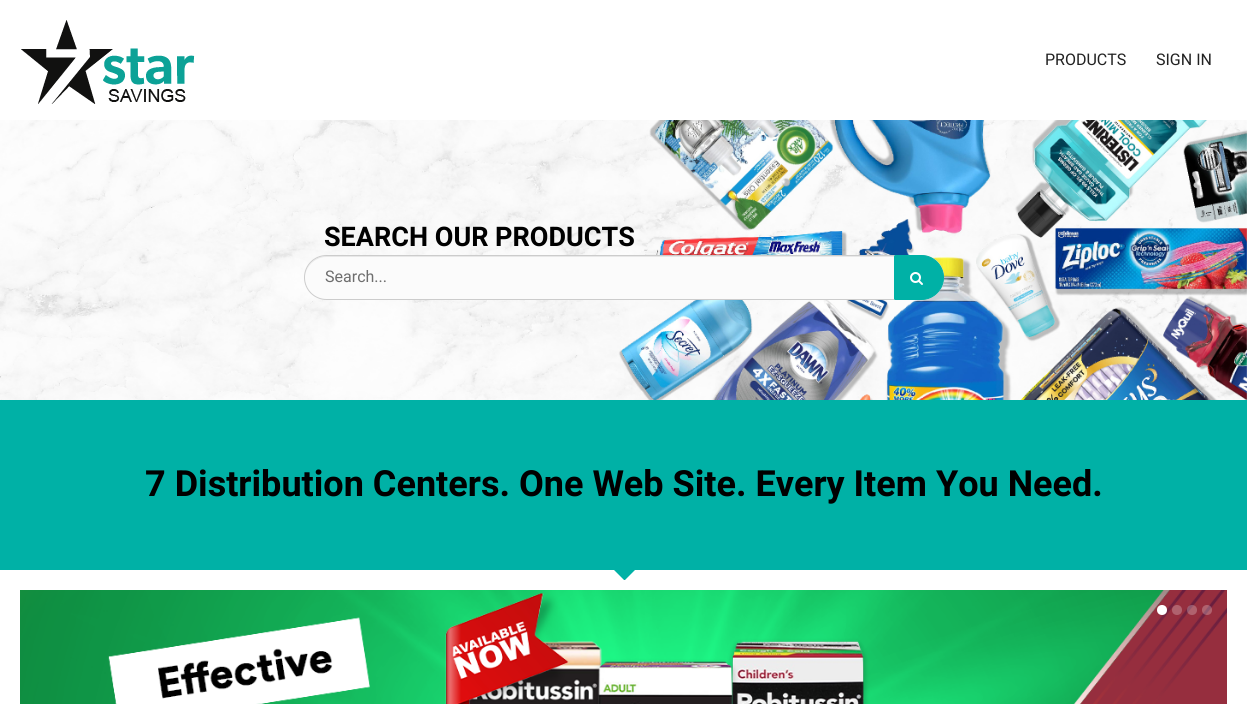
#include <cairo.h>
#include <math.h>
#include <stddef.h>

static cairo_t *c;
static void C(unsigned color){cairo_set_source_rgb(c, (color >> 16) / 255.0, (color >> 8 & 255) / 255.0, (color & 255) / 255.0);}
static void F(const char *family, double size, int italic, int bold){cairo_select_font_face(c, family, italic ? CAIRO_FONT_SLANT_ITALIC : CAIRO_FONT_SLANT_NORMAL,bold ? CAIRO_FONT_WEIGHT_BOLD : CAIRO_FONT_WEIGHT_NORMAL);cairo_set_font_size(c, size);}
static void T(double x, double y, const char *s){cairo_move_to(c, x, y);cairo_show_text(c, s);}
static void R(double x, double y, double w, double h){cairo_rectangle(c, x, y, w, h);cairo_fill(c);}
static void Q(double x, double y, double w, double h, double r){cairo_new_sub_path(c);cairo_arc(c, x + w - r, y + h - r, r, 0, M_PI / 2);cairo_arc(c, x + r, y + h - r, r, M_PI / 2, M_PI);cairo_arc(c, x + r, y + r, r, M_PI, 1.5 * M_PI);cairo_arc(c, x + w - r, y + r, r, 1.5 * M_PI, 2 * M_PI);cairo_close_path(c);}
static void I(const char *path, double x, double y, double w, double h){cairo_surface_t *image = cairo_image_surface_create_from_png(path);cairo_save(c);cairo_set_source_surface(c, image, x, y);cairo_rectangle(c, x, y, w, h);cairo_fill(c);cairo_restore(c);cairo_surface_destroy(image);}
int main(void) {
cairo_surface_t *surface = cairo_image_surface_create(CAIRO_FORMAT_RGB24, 1247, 704);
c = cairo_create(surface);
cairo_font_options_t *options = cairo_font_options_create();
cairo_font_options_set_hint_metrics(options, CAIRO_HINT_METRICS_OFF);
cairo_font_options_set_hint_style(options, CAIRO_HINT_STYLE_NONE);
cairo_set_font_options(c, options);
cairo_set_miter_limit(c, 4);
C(0xffffff);
cairo_paint(c);
I("1.png",21,20,174,84);
F("Heebo",16,0,0);
C(0x222222);
T(1045,65,"PRODUCTS");
T(1156,65,"SIGN IN");
I("2.png",0,120,1247,280);
F("Heebo",27,0,1);
C(0x000000);
T(324,246,"SEARCH OUR PRODUCTS");
C(0xfbfbfb);
Q(304,255,640,45,22.5);
cairo_fill(c);
C(0xe8e8e8);
cairo_new_path(c);
cairo_move_to(c,326,257);
cairo_line_to(c,922,257);
cairo_curve_to(c,933,257,943,267,943,278);
cairo_curve_to(c,943,266,933,256,922,256);
cairo_line_to(c,326,256);
cairo_curve_to(c,315,256,305,266,305,278);
cairo_curve_to(c,305,267,315,257,326,257);
cairo_close_path(c);
cairo_fill(c);
Q(304.5,255.5,639,44,22);
C(0xcccccc);
cairo_set_line_width(c,1);
cairo_stroke(c);
F("Heebo",16,0,0);
C(0x6e6e6e);
T(325,282,"Search...");
C(0x00b1a6);
cairo_new_path(c);
cairo_move_to(c,895.5,255.5);
cairo_line_to(c,921.5,255.5);
cairo_curve_to(c,933.5,255.5,943.5,265.5,943.5,277.5);
cairo_curve_to(c,943.5,289.5,933.5,299.5,921.5,299.5);
cairo_line_to(c,895.5,299.5);
cairo_curve_to(c,895,299.5,894.5,299,894.5,298.5);
cairo_line_to(c,894.5,256.5);
cairo_curve_to(c,894.5,256,895,255.5,895.5,255.5);
cairo_close_path(c);
cairo_fill_preserve(c);
cairo_stroke(c);
I("3.png",910,272,13,13);
R(0,400,1247,170);
F("Heebo",36,0,1);
C(0x000000);
T(145,496,"7 Distribution Centers. One Web Site. Every Item You Need.");
C(0x00b1a6);
cairo_new_path(c);
cairo_move_to(c,614,570);
cairo_line_to(c,635,570);
cairo_line_to(c,625,580);
cairo_line_to(c,624,580);
cairo_close_path(c);
cairo_fill(c);
I("4.png",20,590,1207,114);
C(0xffffff);
cairo_arc(c,1162,610,5,0,2 * M_PI);
cairo_fill(c);
cairo_set_source_rgba(c,1,1,1,0.25);
cairo_arc(c,1177,610,5,0,2 * M_PI);
cairo_fill(c);
cairo_arc(c,1192,610,5,0,2 * M_PI);
cairo_fill(c);
cairo_arc(c,1207,610,5,0,2 * M_PI);
cairo_fill(c);
cairo_surface_write_to_png(surface, "o.png");
cairo_font_options_destroy(options);
cairo_destroy(c);
cairo_surface_destroy(surface);
return 0;
}
